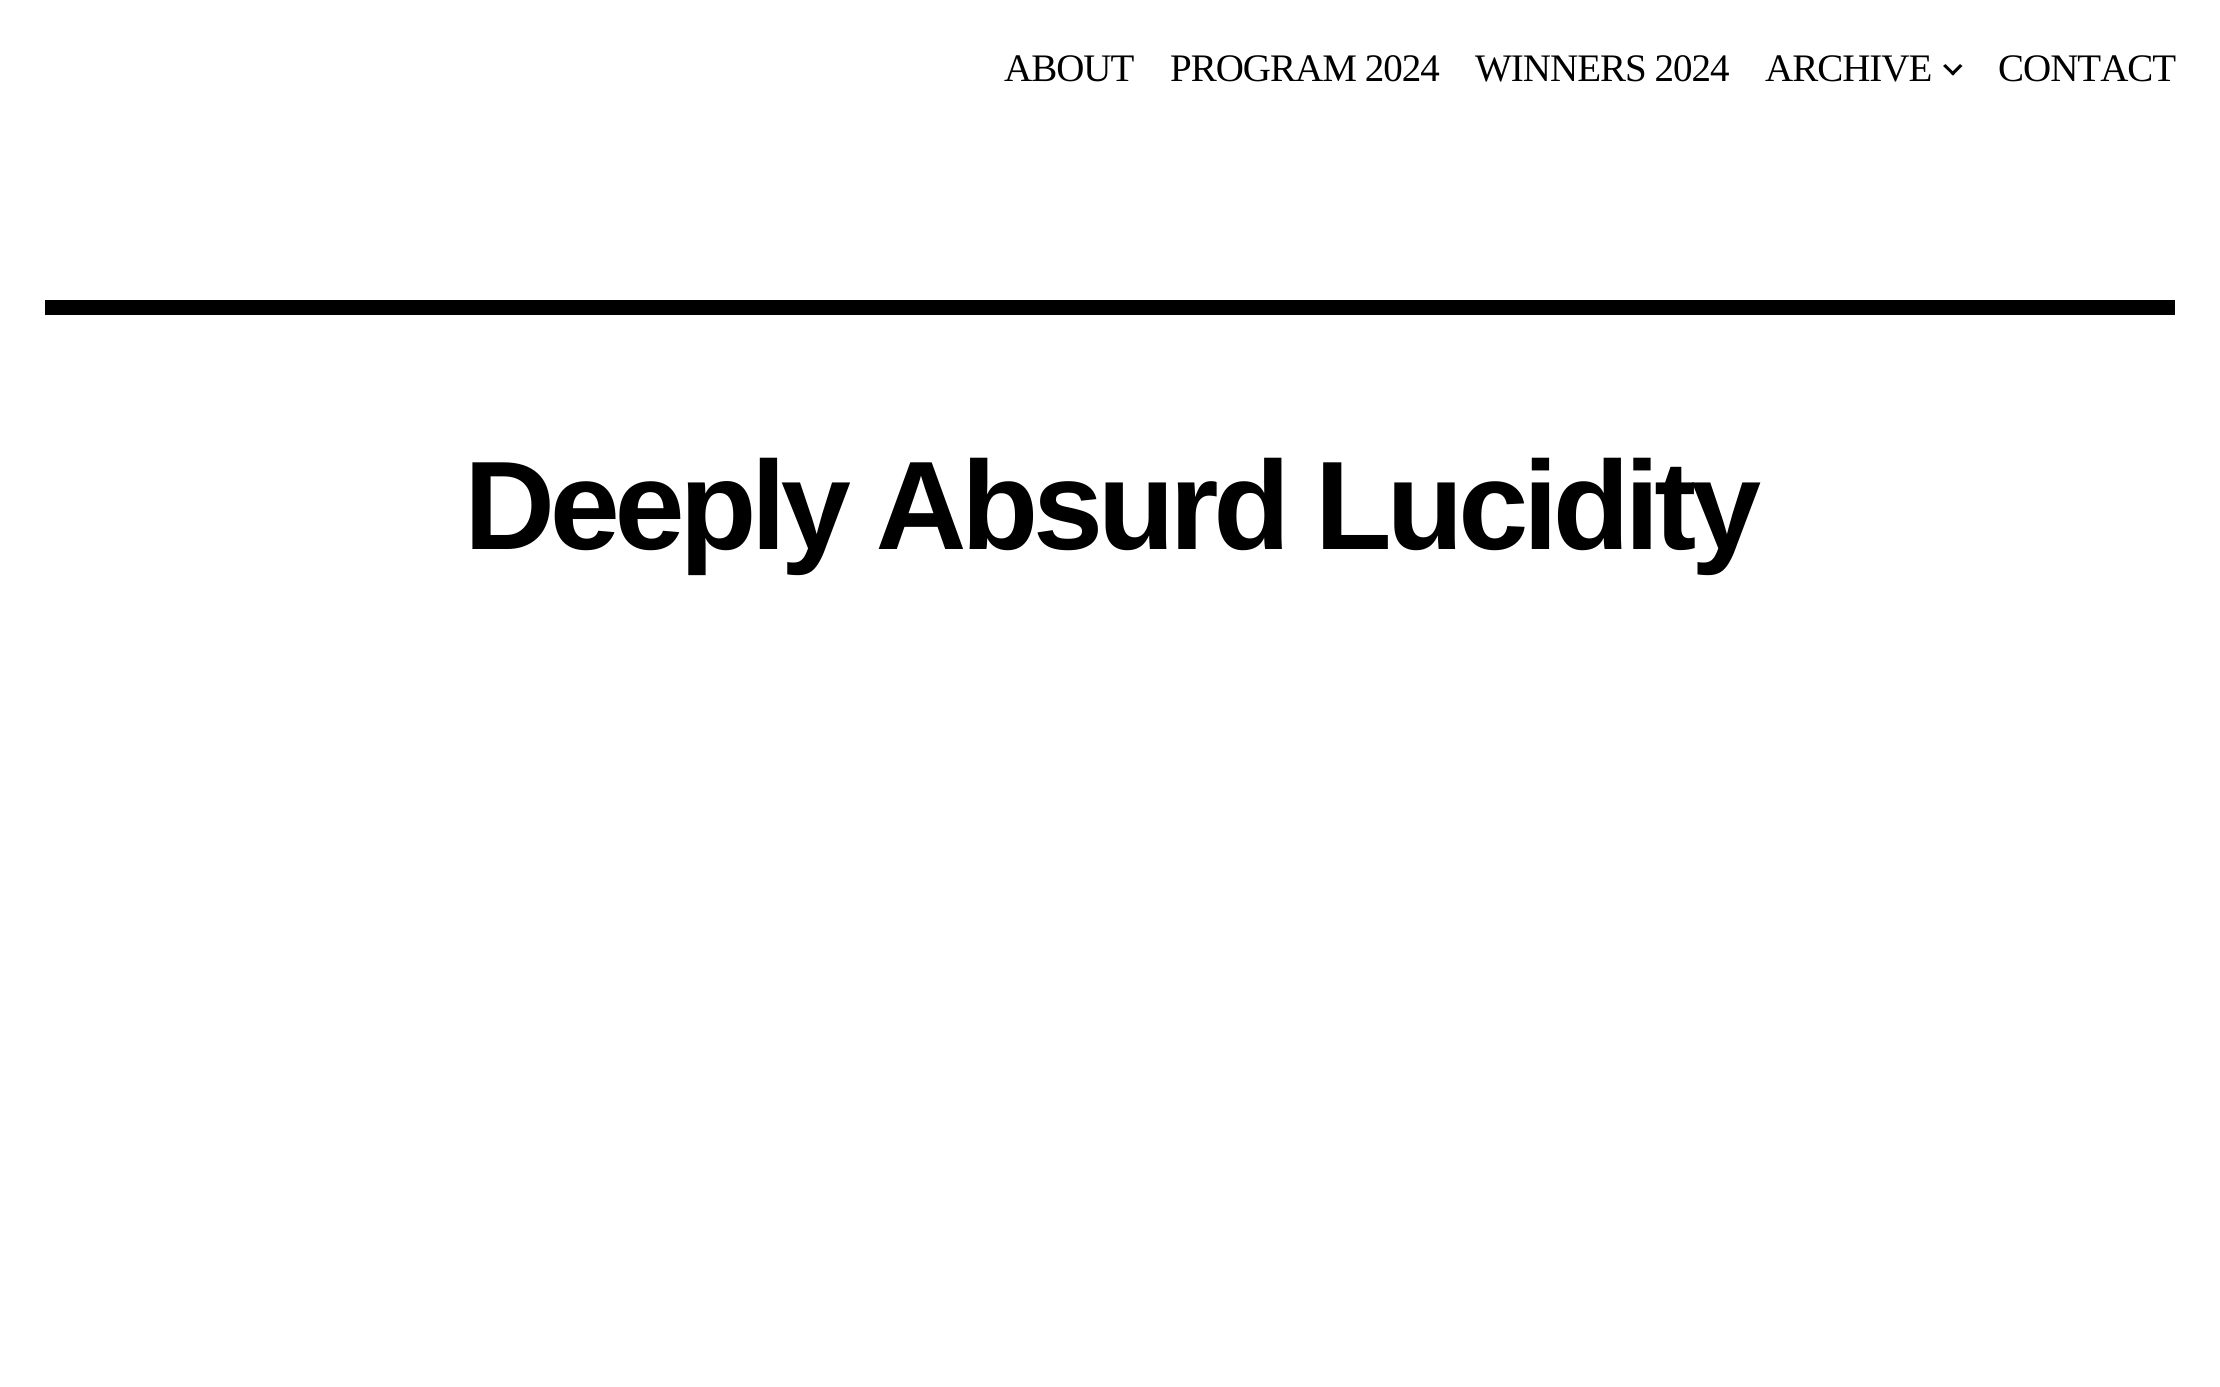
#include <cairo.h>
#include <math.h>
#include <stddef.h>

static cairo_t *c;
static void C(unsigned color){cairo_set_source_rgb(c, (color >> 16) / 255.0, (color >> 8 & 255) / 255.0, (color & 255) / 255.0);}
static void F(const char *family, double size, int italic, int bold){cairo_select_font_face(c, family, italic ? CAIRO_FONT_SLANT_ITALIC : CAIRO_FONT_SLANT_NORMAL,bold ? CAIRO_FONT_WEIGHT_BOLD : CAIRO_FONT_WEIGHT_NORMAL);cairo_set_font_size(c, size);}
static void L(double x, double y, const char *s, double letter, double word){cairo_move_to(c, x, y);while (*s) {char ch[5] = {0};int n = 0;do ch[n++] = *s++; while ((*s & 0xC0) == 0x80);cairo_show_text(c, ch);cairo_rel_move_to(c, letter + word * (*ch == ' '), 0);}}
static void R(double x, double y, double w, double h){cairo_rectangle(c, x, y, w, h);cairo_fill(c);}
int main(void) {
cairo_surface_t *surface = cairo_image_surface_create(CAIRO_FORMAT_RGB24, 2220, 1387);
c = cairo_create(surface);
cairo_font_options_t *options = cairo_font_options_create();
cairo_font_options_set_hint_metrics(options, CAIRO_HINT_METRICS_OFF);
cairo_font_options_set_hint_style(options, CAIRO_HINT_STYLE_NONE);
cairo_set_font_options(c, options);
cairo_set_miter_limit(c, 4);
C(0xffffff);
cairo_paint(c);
C(0x000000);
R(45,300,2130,15);
F("Liberation Serif",39,0,0);
L(1004,81,"ABOUT",-1,0);
L(1170,81,"PROGRAM 2024",-1,0);
L(1475,81,"WINNERS 2024",-1,0);
L(1765,81,"ARCHIVE",-1,0);
cairo_new_path(c);
cairo_move_to(c,1943,66);
cairo_line_to(c,1945.5,64);
cairo_line_to(c,1955,73.5);
cairo_line_to(c,1953,75.5);
cairo_close_path(c);
cairo_fill(c);
cairo_new_path(c);
cairo_move_to(c,1950.5,73.5);
cairo_line_to(c,1960,64);
cairo_line_to(c,1962.5,66);
cairo_line_to(c,1953,75.5);
cairo_close_path(c);
cairo_fill(c);
L(1998,81,"CONTACT",-1,0);
F("Liberation Sans",126,0,1);
L(464,549,"Deeply Absurd Lucidity",-5.25,0);
cairo_surface_write_to_png(surface, "o.png");
cairo_font_options_destroy(options);
cairo_destroy(c);
cairo_surface_destroy(surface);
return 0;
}
